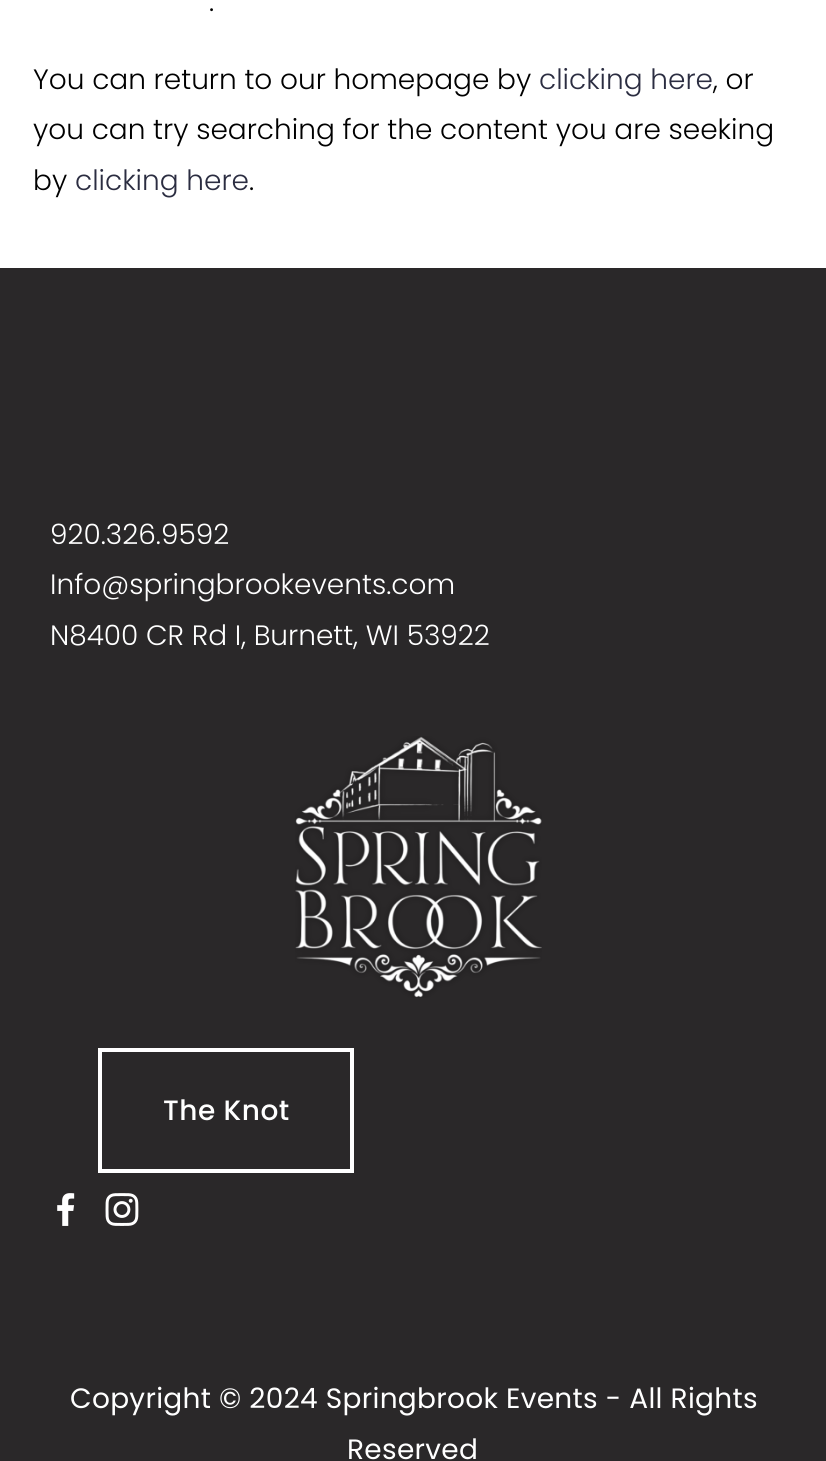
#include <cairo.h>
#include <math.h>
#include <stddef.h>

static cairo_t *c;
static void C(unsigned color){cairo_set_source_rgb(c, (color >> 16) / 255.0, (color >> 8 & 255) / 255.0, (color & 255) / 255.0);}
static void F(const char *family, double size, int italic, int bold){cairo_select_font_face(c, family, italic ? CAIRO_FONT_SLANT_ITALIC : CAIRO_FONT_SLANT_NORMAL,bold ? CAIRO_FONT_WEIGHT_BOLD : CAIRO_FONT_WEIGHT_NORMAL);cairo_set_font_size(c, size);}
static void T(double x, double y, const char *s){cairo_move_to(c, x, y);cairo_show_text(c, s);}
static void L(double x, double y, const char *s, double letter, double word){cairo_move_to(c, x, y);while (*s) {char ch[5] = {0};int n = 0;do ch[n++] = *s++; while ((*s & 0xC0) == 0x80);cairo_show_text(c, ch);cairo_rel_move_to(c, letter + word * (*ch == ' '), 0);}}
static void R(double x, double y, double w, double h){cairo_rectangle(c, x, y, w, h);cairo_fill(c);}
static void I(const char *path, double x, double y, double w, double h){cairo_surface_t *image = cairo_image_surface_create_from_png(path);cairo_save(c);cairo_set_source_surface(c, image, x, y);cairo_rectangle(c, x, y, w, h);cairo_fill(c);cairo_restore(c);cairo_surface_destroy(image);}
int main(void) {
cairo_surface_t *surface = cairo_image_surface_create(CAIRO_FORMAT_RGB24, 826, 1461);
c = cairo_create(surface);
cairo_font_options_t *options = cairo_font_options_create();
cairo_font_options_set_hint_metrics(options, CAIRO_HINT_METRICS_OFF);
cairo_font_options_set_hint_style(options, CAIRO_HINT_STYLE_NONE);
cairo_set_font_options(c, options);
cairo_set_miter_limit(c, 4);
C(0xffffff);
cairo_paint(c);
F("Poppins Light",28,0,0);
C(0x000000);
T(209,11,".");
T(33,89,"You can return to our homepage by");
C(0x2b2d41);
T(539,89,"clicking here");
C(0x000000);
T(713,89,", or");
T(33,139,"you can try searching for the content you are seeking");
T(33,190,"by");
C(0x2b2d41);
T(75,190,"clicking here");
C(0x000000);
T(249,190,".");
C(0x2a2829);
R(0,268,826,1193);
C(0xffffff);
T(50,544,"920.326.9592");
T(50,594,"Info@springbrookevents.com");
T(50,645,"N8400 CR Rd I, Burnett, WI 53922");
I("1.png",295,736,247,262);
cairo_rectangle(c,100,1050,252,121);
cairo_set_line_width(c,4);
cairo_stroke(c);
F("Poppins Medium",28,0,0);
L(163,1120,"The Knot",.5,0);
I("2.png",57,1193,18,33);
I("3.png",105,1193,34,33);
F("Poppins",28,0,0);
L(70,1408,"Copyright © 2024 Springbrook Events - All Rights",.3,0);
L(347,1459,"Reserved",.3,0);
cairo_surface_write_to_png(surface, "o.png");
cairo_font_options_destroy(options);
cairo_destroy(c);
cairo_surface_destroy(surface);
return 0;
}
